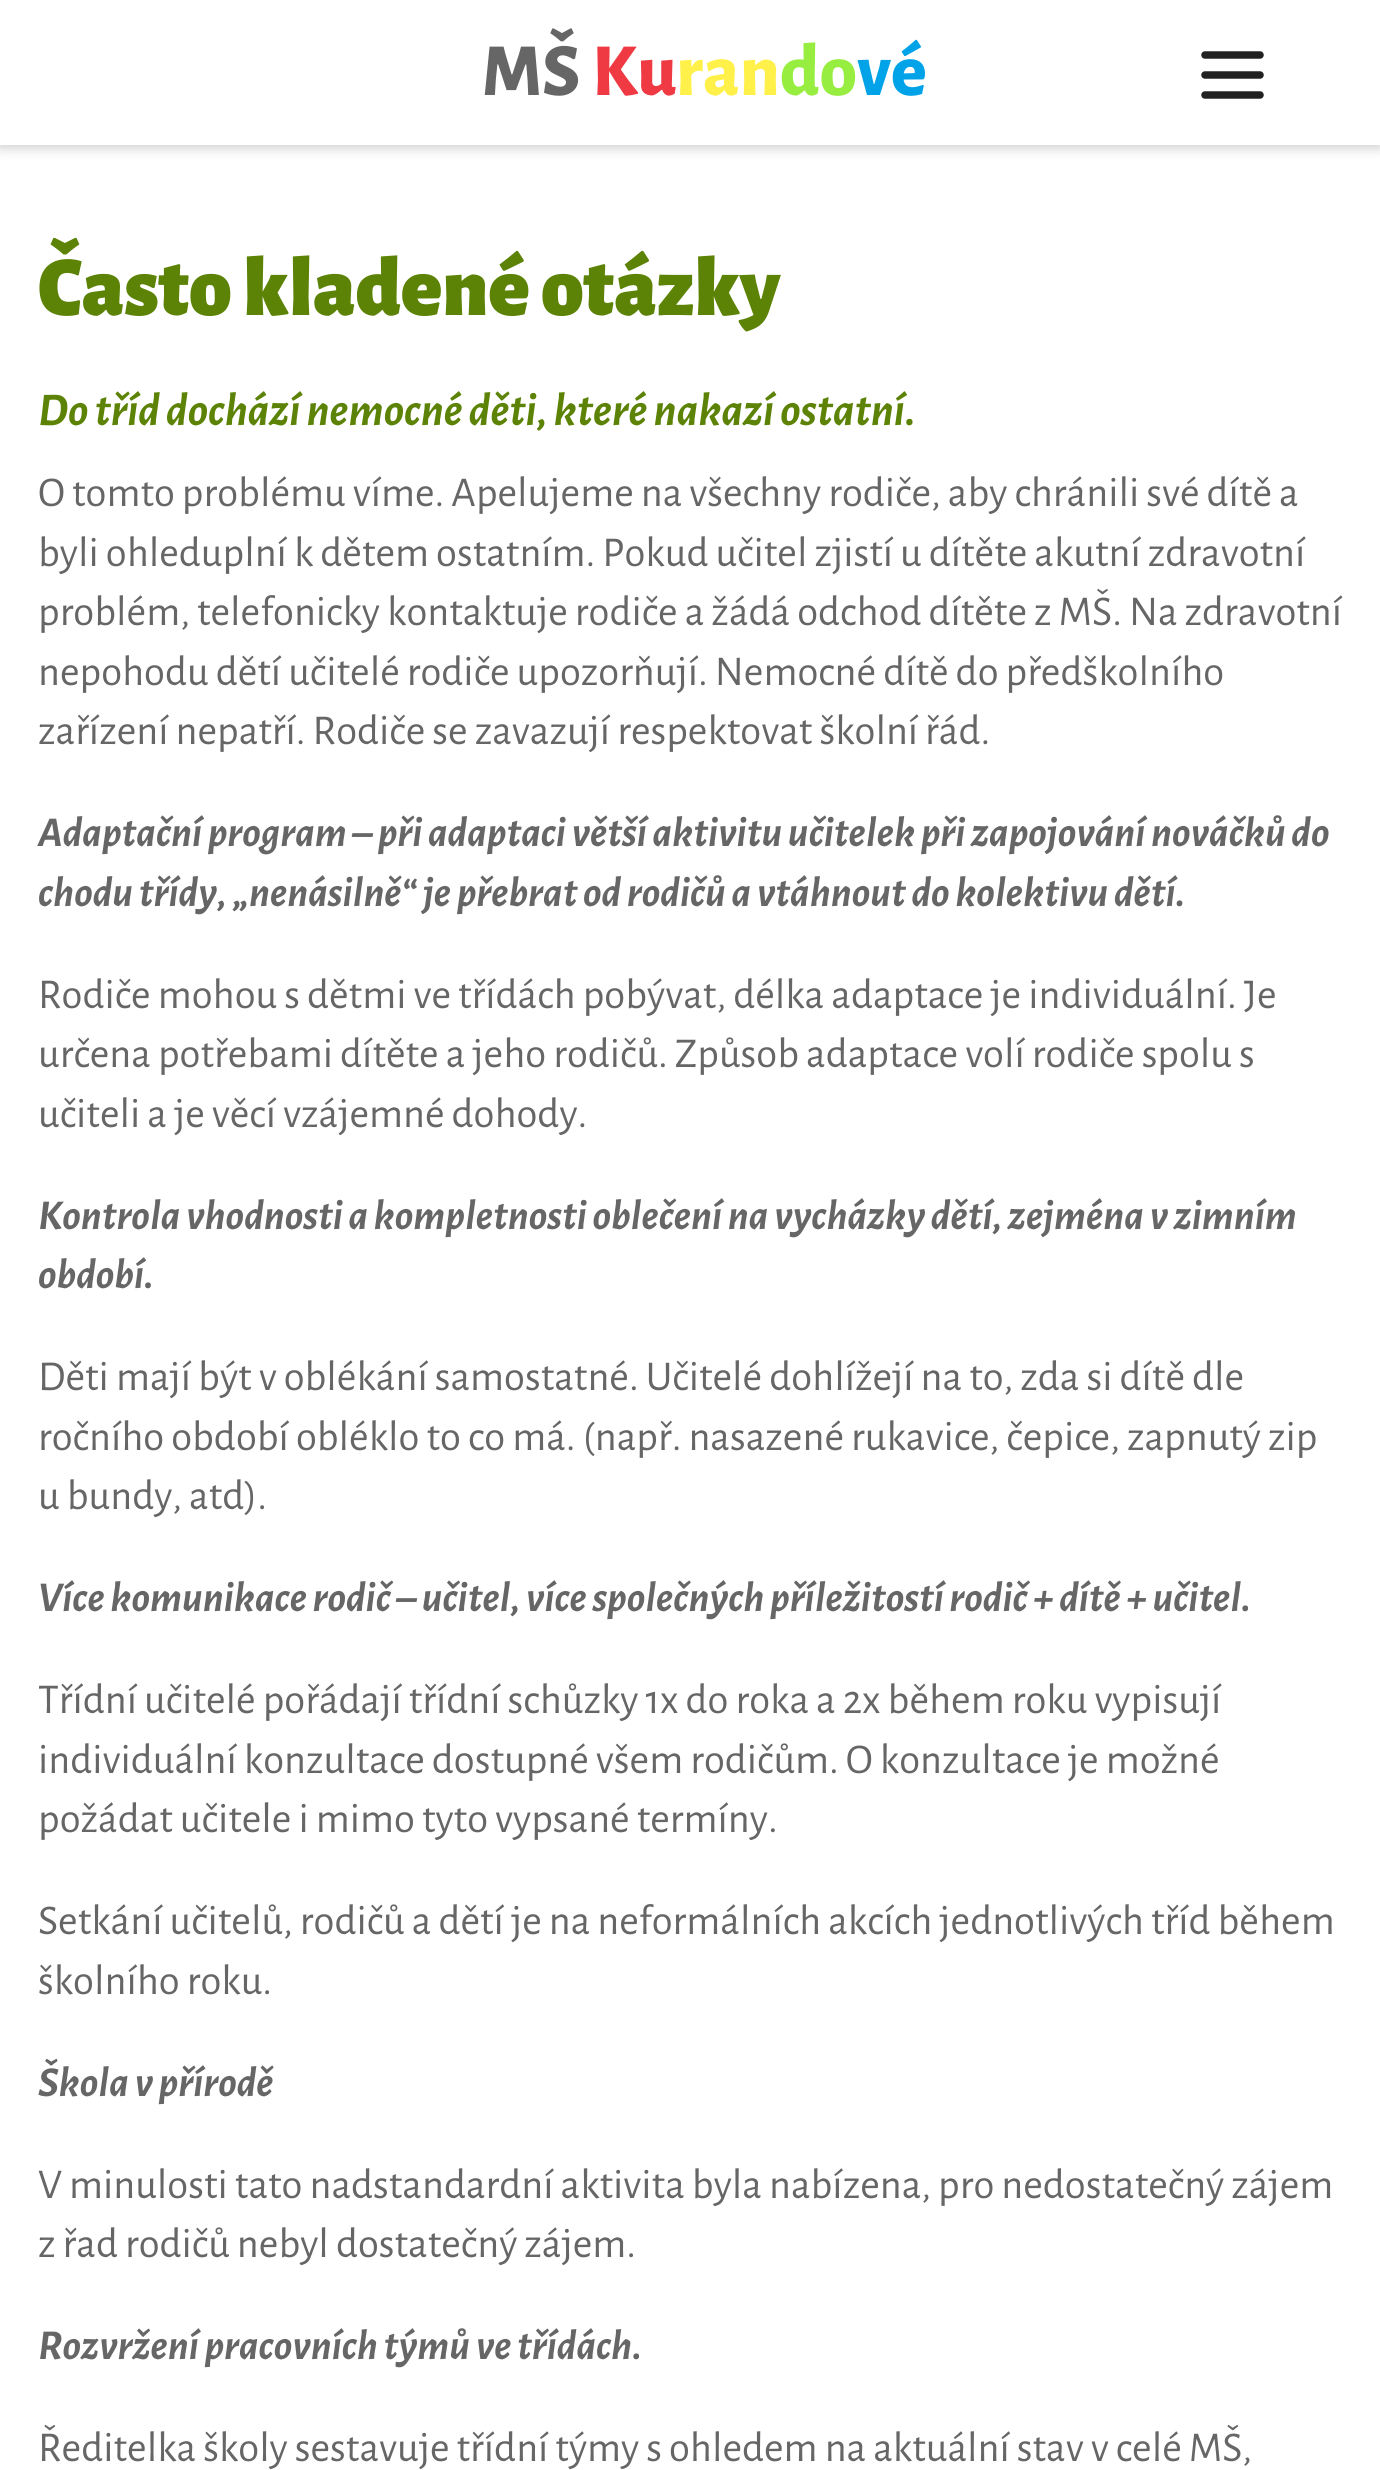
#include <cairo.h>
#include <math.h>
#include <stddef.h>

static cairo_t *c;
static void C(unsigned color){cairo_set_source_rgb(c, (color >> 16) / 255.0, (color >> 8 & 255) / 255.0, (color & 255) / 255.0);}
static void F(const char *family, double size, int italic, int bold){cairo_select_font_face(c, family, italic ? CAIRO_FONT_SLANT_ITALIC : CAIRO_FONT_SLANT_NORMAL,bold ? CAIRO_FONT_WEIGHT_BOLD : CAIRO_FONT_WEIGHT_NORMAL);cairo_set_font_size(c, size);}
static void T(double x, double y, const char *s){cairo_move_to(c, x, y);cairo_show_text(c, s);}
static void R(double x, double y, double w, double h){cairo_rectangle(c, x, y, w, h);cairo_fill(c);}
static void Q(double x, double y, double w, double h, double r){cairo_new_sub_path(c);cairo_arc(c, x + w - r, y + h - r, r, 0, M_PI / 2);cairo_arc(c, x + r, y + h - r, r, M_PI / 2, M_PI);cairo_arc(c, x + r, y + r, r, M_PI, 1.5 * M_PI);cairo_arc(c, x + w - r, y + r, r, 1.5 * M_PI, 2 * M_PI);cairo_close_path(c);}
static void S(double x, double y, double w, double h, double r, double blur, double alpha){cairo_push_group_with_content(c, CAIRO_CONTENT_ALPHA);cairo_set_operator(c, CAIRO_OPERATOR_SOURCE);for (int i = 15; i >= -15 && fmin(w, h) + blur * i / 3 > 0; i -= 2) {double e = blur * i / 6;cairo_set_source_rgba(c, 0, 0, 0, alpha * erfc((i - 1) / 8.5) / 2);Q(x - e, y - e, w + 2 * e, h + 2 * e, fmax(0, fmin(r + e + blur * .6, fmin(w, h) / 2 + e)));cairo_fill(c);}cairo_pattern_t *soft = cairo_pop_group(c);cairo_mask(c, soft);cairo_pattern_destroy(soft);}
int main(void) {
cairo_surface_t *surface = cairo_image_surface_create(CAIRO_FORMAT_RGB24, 1380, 2470);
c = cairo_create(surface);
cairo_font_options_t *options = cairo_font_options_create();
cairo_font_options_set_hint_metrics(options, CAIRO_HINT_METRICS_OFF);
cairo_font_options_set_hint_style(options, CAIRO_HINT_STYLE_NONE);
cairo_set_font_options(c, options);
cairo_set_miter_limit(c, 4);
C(0xffffff);
cairo_paint(c);
C(0x000000);
S(0,3,1380,145,0,6,.2);
C(0xffffff);
R(0,0,1380,145);
F("Alegreya Sans ExtraBold",75,0,0);
C(0x666666);
T(482,95,"MŠ");
C(0xef3a44);
T(592,95,"Ku");
C(0xfff14a);
T(676,95,"ran");
C(0x97ee40);
T(780,95,"do");
C(0x00a2e8);
T(857,95,"vé");
cairo_new_path(c);
cairo_move_to(c,1205,55);
cairo_line_to(c,1260,55);
cairo_move_to(c,1205,75);
cairo_line_to(c,1260,75);
cairo_move_to(c,1205,95);
cairo_line_to(c,1260,95);
C(0x212121);
cairo_set_line_width(c,7.5);
cairo_set_line_cap(c,CAIRO_LINE_CAP_ROUND);
cairo_stroke(c);
F("Alegreya Sans Black",85,0,0);
C(0x5c8306);
T(38,315,"Často kladené otázky");
F("Alegreya Sans",46.75,1,1);
T(38,425,"Do tříd dochází nemocné děti, které nakazí ostatní.");
F("Alegreya Sans",42.5,0,0);
C(0x666666);
T(38,506,"O tomto problému víme. Apelujeme na všechny rodiče, aby chránili své dítě a");
T(38,566,"byli ohleduplní k dětem ostatním. Pokud učitel zjistí u dítěte akutní zdravotní");
T(38,625,"problém, telefonicky kontaktuje rodiče a žádá odchod dítěte z MŠ. Na zdravotní");
T(38,685,"nepohodu dětí učitelé rodiče upozorňují. Nemocné dítě do předškolního");
T(38,744,"zařízení nepatří. Rodiče se zavazují respektovat školní řád.");
F("Alegreya Sans",42.5,1,1);
T(38,846,"Adaptační program – při adaptaci větší aktivitu učitelek při zapojování nováčků do");
T(38,906,"chodu třídy, „nenásilně“ je přebrat od rodičů a vtáhnout do kolektivu dětí.");
F("Alegreya Sans",42.5,0,0);
T(38,1008,"Rodiče mohou s dětmi ve třídách pobývat, délka adaptace je individuální. Je");
T(38,1067,"určena potřebami dítěte a jeho rodičů. Způsob adaptace volí rodiče spolu s");
T(38,1127,"učiteli a je věcí vzájemné dohody.");
F("Alegreya Sans",42.5,1,1);
T(38,1229,"Kontrola vhodnosti a kompletnosti oblečení na vycházky dětí, zejména v zimním");
T(38,1288,"období.");
F("Alegreya Sans",42.5,0,0);
T(38,1390,"Děti mají být v oblékání samostatné. Učitelé dohlížejí na to, zda si dítě dle");
T(38,1450,"ročního období obléklo to co má. (např. nasazené rukavice, čepice, zapnutý zip");
T(38,1509,"u bundy, atd).");
F("Alegreya Sans",42.5,1,1);
T(38,1611,"Více komunikace rodič – učitel, více společných příležitostí rodič + dítě + učitel.");
F("Alegreya Sans",42.5,0,0);
T(38,1713,"Třídní učitelé pořádají třídní schůzky 1x do roka a 2x během roku vypisují");
T(38,1773,"individuální konzultace dostupné všem rodičům. O konzultace je možné");
T(38,1832,"požádat učitele i mimo tyto vypsané termíny.");
T(38,1934,"Setkání učitelů, rodičů a dětí je na neformálních akcích jednotlivých tříd během");
T(38,1994,"školního roku.");
F("Alegreya Sans",42.5,1,1);
T(38,2096,"Škola v přírodě");
F("Alegreya Sans",42.5,0,0);
T(38,2198,"V minulosti tato nadstandardní aktivita byla nabízena, pro nedostatečný zájem");
T(38,2257,"z řad rodičů nebyl dostatečný zájem.");
F("Alegreya Sans",42.5,1,1);
T(38,2359,"Rozvržení pracovních týmů ve třídách.");
F("Alegreya Sans",42.5,0,0);
T(38,2461,"Ředitelka školy sestavuje třídní týmy s ohledem na aktuální stav v celé MŠ,");
cairo_surface_write_to_png(surface, "o.png");
cairo_font_options_destroy(options);
cairo_destroy(c);
cairo_surface_destroy(surface);
return 0;
}
